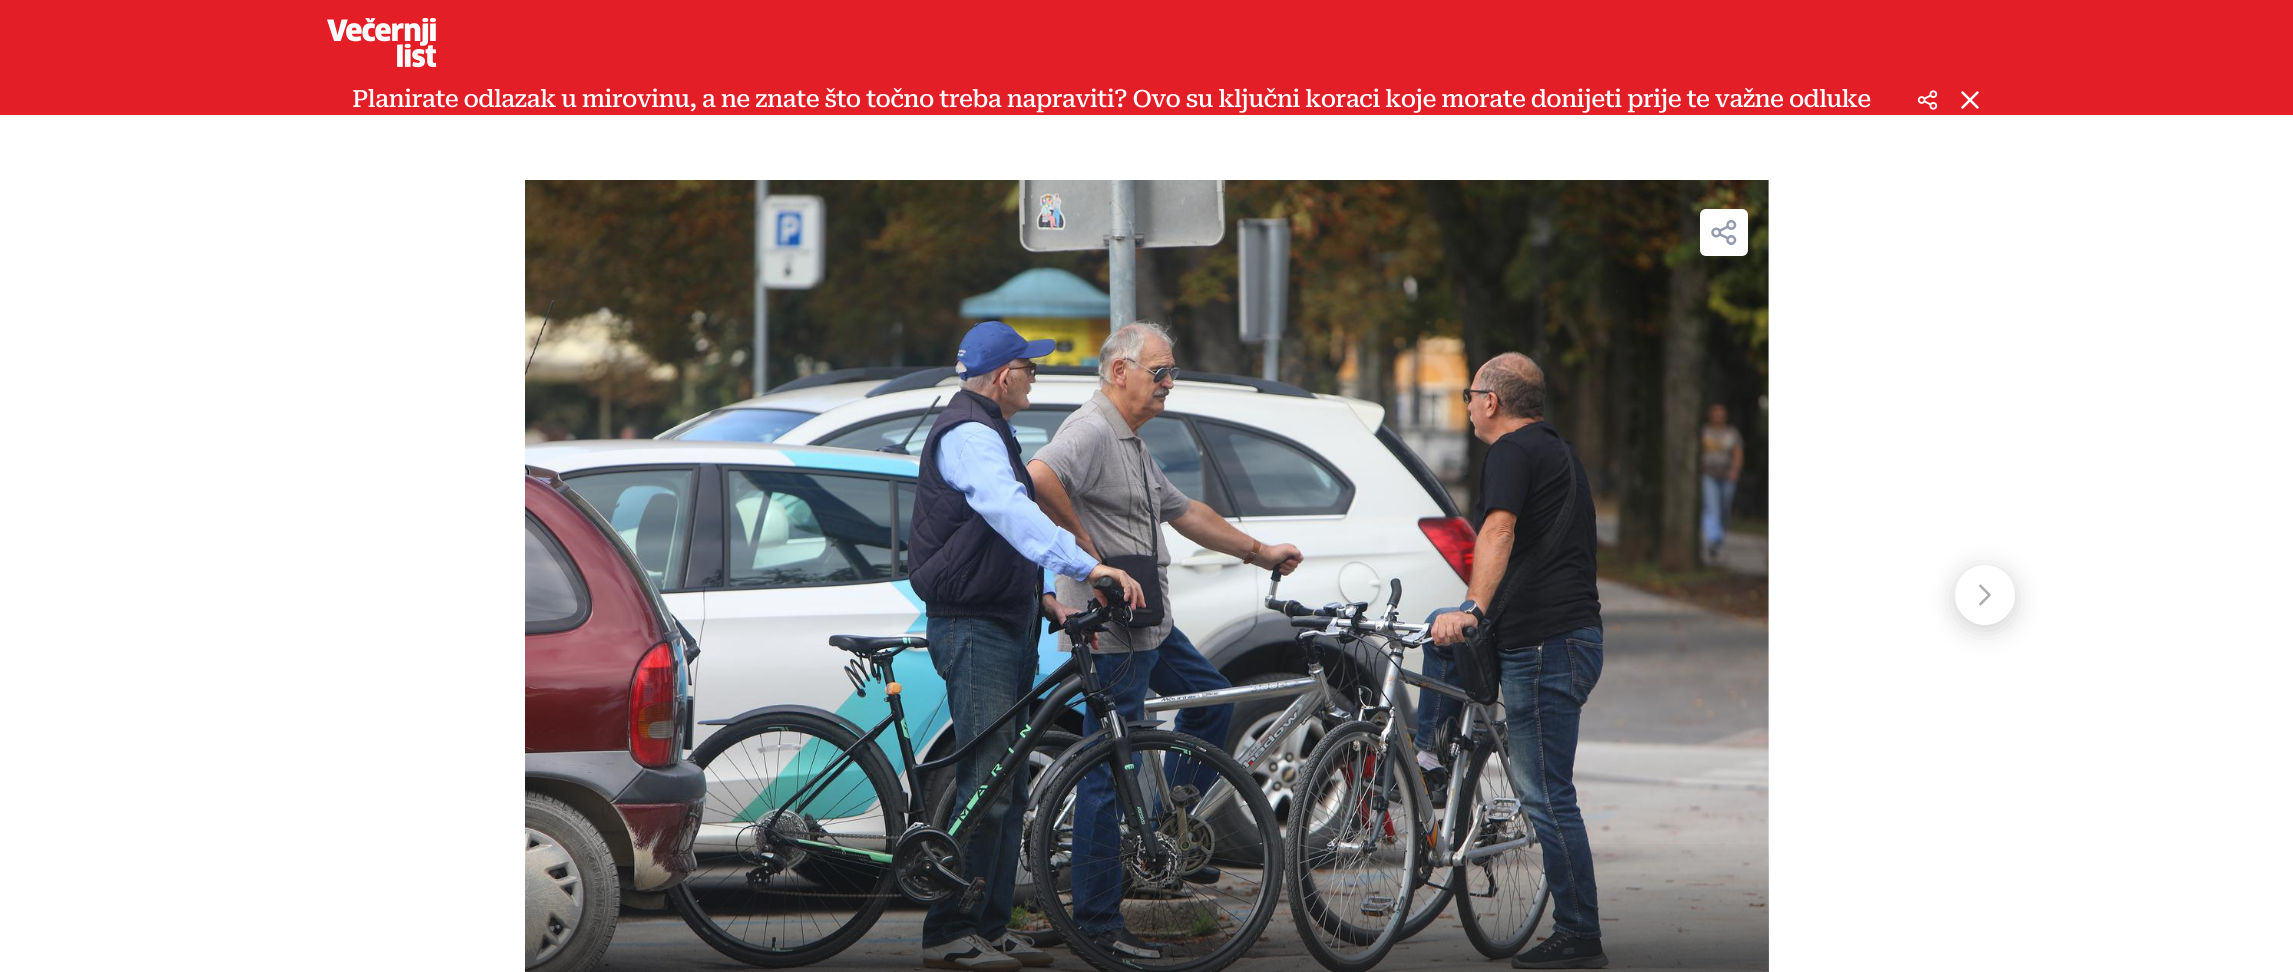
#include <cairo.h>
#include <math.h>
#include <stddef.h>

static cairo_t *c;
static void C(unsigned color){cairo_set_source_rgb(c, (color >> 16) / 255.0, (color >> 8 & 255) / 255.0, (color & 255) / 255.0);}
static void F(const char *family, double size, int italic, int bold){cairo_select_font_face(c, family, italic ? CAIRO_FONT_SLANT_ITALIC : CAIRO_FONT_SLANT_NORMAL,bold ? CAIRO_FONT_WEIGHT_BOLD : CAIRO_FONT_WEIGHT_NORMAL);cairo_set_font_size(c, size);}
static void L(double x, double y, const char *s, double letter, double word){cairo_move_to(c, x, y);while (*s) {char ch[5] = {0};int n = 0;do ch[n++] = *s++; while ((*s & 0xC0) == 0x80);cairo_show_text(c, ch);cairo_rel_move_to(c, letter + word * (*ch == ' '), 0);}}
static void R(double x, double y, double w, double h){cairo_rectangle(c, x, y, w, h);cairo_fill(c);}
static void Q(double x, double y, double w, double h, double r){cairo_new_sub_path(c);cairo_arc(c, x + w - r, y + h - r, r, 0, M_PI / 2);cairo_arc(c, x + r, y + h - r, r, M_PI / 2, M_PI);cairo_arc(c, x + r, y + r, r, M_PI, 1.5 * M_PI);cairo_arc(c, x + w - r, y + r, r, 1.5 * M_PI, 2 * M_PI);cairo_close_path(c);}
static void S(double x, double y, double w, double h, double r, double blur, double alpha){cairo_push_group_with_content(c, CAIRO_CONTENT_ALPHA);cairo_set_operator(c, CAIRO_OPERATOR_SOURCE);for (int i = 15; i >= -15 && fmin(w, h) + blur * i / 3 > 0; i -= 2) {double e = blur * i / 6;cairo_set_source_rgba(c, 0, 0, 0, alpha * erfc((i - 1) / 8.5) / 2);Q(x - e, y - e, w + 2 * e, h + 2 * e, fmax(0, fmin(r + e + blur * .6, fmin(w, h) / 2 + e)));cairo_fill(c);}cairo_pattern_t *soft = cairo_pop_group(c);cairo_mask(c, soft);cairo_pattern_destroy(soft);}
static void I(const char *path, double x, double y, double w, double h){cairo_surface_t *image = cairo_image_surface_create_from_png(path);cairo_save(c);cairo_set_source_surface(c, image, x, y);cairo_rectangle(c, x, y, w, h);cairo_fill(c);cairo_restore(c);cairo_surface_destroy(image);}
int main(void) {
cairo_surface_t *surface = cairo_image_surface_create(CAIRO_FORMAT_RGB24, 2293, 972);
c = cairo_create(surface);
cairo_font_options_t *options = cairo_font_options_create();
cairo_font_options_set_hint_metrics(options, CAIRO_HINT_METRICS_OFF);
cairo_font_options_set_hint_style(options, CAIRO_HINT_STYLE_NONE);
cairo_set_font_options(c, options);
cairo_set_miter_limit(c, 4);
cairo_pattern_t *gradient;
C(0xffffff);
cairo_paint(c);
C(0xe41e27);
R(0,0,2293,115);
I("1.png",327,18,110,50);
F("Roboto Serif Medium",23.75,0,0);
C(0xffffff);
L(352,107,"Planirate odlazak u mirovinu, a ne znate što točno treba napraviti? Ovo su ključni koraci koje morate donijeti prije te važne odluke",-.71,0);
I("2.png",1917,90,21,20);
cairo_new_path(c);
cairo_move_to(c,1962.5,107.5);
cairo_line_to(c,1977.5,92.5);
cairo_move_to(c,1962.5,92.5);
cairo_line_to(c,1977.5,107.5);
cairo_set_line_width(c,2.5);
cairo_set_line_cap(c,CAIRO_LINE_CAP_ROUND);
cairo_set_line_join(c,CAIRO_LINE_JOIN_ROUND);
cairo_stroke(c);
C(0xeeeeee);
R(1768,180,1,792);
I("3.png",525,180,1244,792);
I("4.png",1700,209,48,47);
gradient = cairo_pattern_create_linear(1147,839,1147,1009);
cairo_pattern_add_color_stop_rgba(gradient,0,0.067,0.067,0.067,0);
cairo_pattern_add_color_stop_rgba(gradient,1,0.067,0.067,0.067,.8);
cairo_set_source(c,gradient);
cairo_pattern_destroy(gradient);
R(525,844,1244,128);
C(0x111111);
S(1955,570,60,60,30,12.5,.2);
C(0xffffff);
cairo_arc(c,1985,595,30,0,2 * M_PI);
cairo_fill(c);
cairo_new_path(c);
cairo_move_to(c,1980.5,586);
cairo_line_to(c,1989.5,595);
cairo_line_to(c,1980.5,604);
C(0xacacac);
cairo_set_line_cap(c,CAIRO_LINE_CAP_SQUARE);
cairo_stroke(c);
cairo_surface_write_to_png(surface, "o.png");
cairo_font_options_destroy(options);
cairo_destroy(c);
cairo_surface_destroy(surface);
return 0;
}
